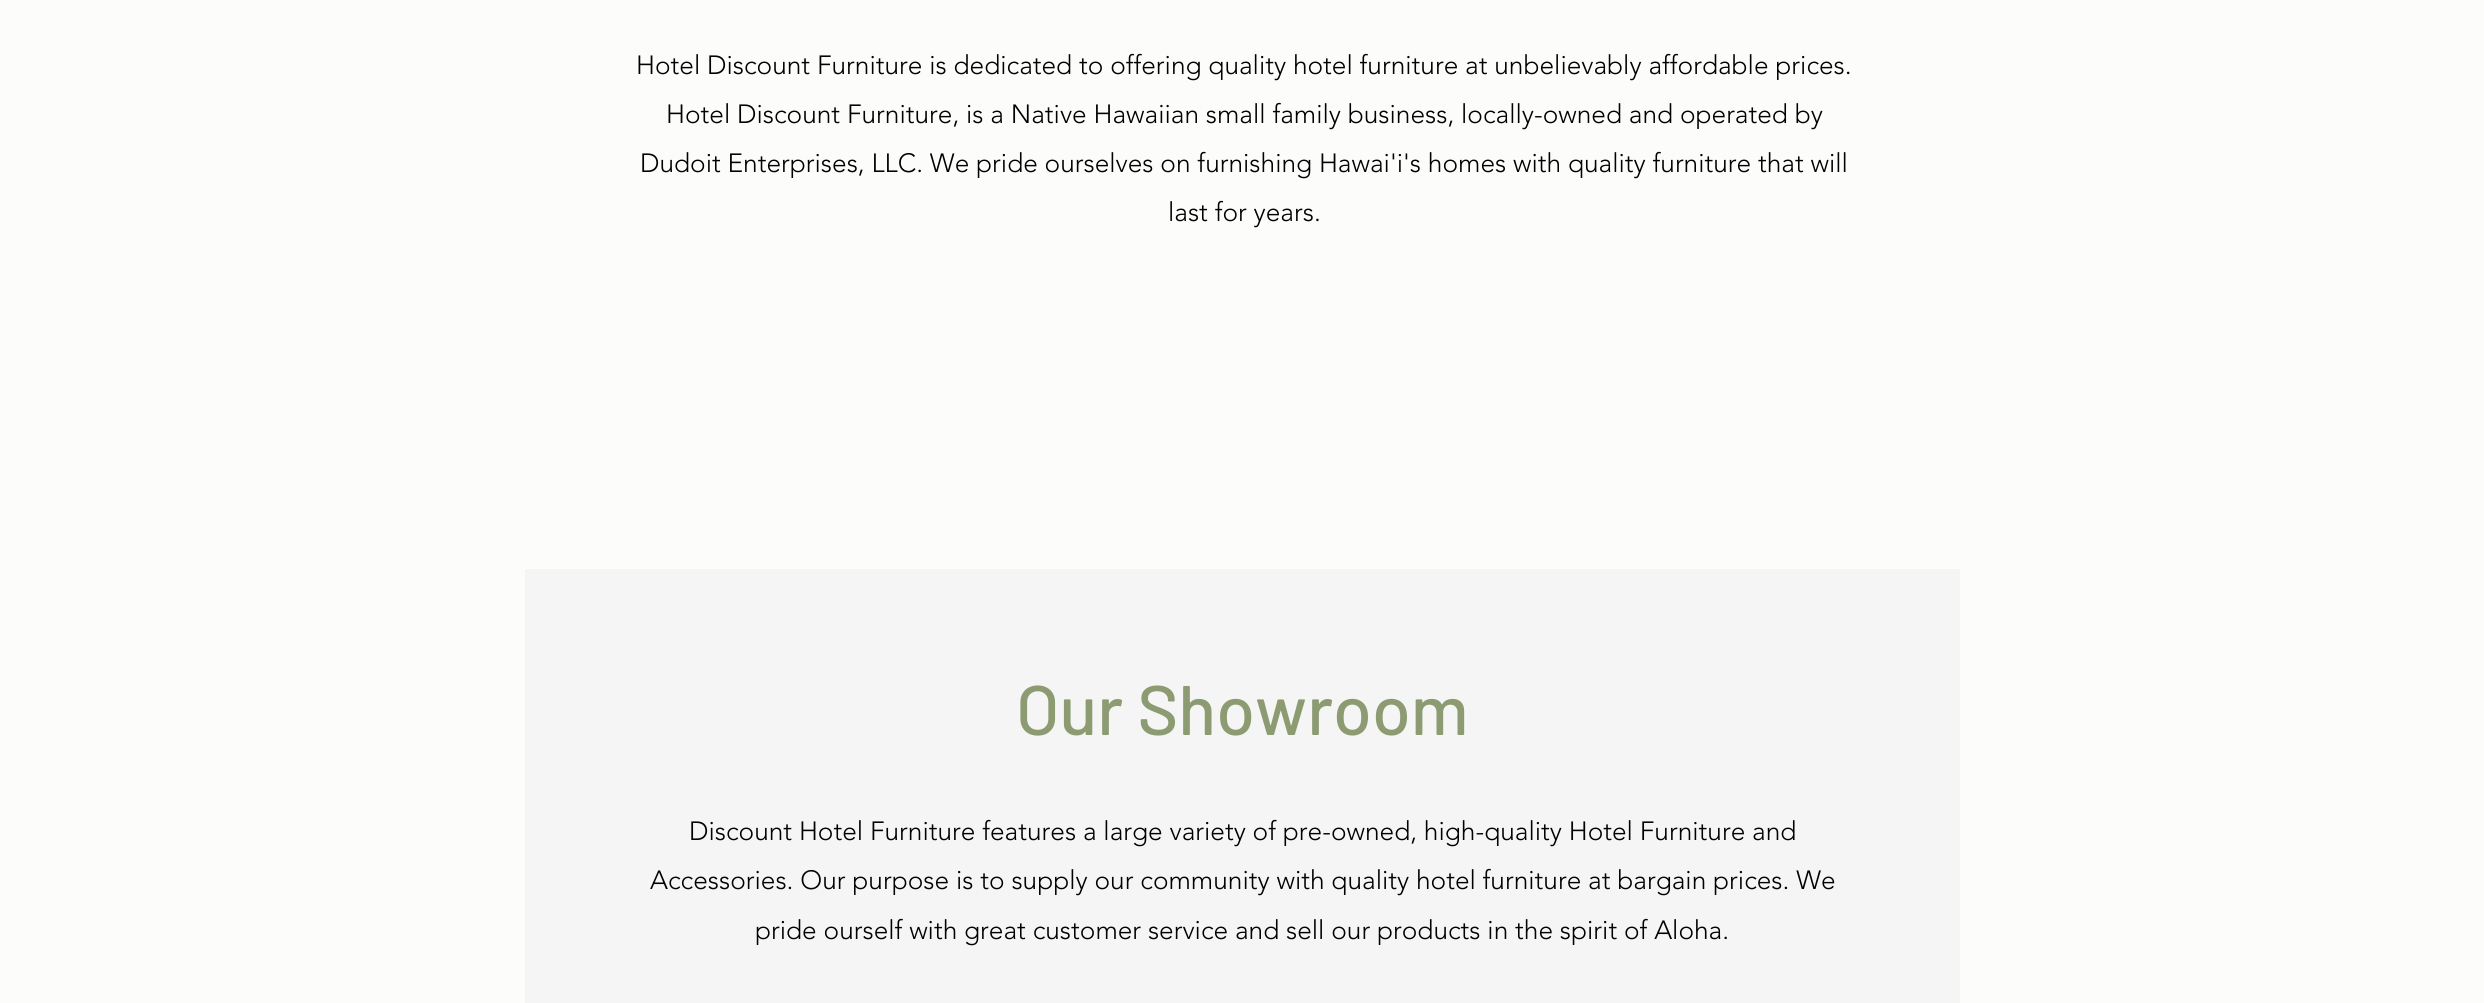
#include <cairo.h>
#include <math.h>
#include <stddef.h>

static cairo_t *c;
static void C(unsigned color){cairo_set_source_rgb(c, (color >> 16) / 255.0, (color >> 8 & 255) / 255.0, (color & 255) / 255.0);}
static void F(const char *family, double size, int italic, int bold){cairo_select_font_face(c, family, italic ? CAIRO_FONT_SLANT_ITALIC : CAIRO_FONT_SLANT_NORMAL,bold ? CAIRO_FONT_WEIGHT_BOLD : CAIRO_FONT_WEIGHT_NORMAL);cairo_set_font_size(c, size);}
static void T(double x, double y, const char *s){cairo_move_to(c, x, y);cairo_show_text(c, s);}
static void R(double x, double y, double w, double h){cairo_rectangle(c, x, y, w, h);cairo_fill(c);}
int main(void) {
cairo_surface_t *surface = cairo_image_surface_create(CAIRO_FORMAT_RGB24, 2484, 1003);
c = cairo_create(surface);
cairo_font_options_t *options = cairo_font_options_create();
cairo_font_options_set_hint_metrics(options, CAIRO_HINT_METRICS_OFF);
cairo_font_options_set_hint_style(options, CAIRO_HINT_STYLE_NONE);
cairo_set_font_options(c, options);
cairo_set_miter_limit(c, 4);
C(0xfcfcfb);
cairo_paint(c);
F("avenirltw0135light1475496 Light",26.25,0,0);
C(0x000000);
T(636,74,"Hotel Discount Furniture is dedicated to offering quality hotel furniture at unbelievably affordable prices.");
T(666,123,"Hotel Discount Furniture, is a Native Hawaiian small family business, locally-owned and operated by");
T(640,172,"Dudoit Enterprises, LLC. We pride ourselves on furnishing Hawai'i's homes with quality furniture that will");
T(1168,221,"last for years.");
C(0xf4f5f4);
R(525,569,1435,434);
F("Barlow Medium",70,0,0);
C(0x8c9b71);
T(1016,735,"Our Showroom");
F("avenirltw0135light1475496 Light",26.25,0,0);
C(0x000000);
T(689,840,"Discount Hotel Furniture features a large variety of pre-owned, high-quality Hotel Furniture and");
T(650,889,"Accessories. Our purpose is to supply our community with quality hotel furniture at bargain prices. We");
T(755,939,"pride ourself with great customer service and sell our products in the spirit of Aloha.");
cairo_surface_write_to_png(surface, "o.png");
cairo_font_options_destroy(options);
cairo_destroy(c);
cairo_surface_destroy(surface);
return 0;
}
